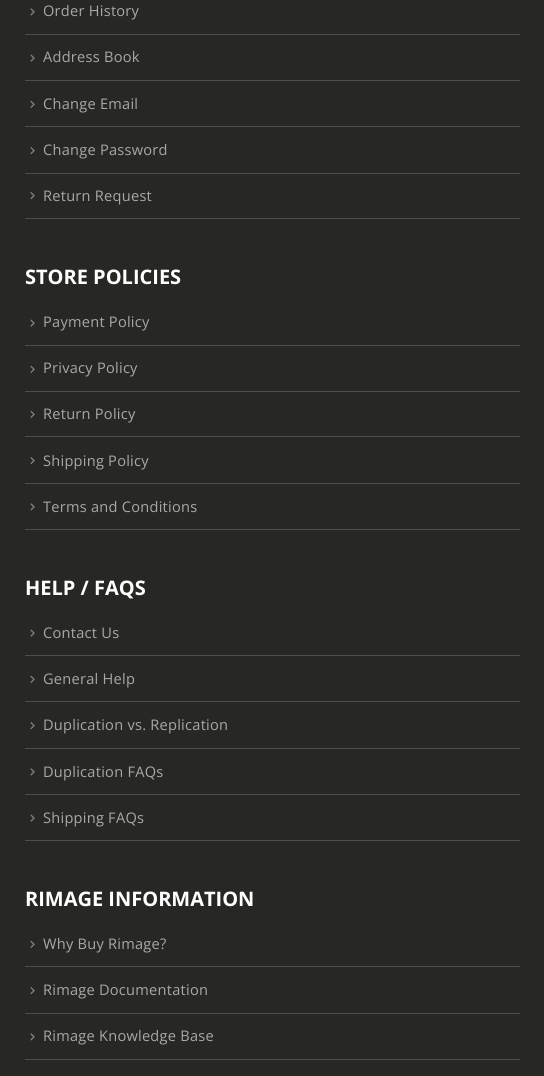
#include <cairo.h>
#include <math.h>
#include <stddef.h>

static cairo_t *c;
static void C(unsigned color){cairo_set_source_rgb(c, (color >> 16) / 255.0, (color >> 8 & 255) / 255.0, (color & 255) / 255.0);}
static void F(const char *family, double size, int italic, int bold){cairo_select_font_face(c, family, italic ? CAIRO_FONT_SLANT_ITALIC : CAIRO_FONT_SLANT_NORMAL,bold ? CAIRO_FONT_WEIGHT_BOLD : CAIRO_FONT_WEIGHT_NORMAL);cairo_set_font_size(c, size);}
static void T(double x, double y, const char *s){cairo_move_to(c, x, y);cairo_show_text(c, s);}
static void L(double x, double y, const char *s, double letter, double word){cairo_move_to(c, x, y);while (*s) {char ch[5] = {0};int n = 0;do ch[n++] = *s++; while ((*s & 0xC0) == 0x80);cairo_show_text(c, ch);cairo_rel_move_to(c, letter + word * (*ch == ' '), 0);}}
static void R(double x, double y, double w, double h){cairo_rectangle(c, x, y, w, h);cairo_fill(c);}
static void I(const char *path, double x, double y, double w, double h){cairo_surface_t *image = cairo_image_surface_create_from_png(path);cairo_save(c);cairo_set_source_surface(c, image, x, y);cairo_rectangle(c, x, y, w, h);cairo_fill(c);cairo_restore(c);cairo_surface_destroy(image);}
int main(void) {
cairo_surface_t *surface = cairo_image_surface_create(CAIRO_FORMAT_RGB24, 544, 1076);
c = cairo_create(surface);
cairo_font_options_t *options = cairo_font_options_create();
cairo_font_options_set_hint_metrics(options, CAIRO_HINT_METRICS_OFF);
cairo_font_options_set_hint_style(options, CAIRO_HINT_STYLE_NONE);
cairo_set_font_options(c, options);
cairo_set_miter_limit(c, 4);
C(0x272723);
cairo_paint(c);
C(0x4e4e4b);
R(25,218,495,1);
I("1.png",30,8,5,8);
F("Open Sans",14.6,0,0);
C(0xa8a8a8);
L(43,16,"Order History",.25,0);
C(0x4e4e4b);
R(25,34,495,1);
I("2.png",30,54,5,8);
C(0xa8a8a8);
L(43,62,"Address Book",.25,0);
C(0x4e4e4b);
R(25,80,495,1);
I("3.png",30,100,5,8);
C(0xa8a8a8);
L(43,109,"Change Email",.25,0);
C(0x4e4e4b);
R(25,126,495,1);
I("4.png",30,147,5,8);
C(0xa8a8a8);
L(43,155,"Change Password",.25,0);
C(0x4e4e4b);
R(25,173,495,1);
I("4.png",30,192,5,8);
C(0xa8a8a8);
L(43,201,"Return Request",.25,0);
F("Open Sans",20,0,1);
C(0xffffff);
T(25,284,"STORE POLICIES");
C(0x4e4e4b);
R(25,529,495,1);
I("2.png",30,319,5,8);
F("Open Sans",14.6,0,0);
C(0xa8a8a8);
L(43,327,"Payment Policy",.25,0);
C(0x4e4e4b);
R(25,345,495,1);
I("3.png",30,365,5,8);
C(0xa8a8a8);
L(43,373,"Privacy Policy",.25,0);
C(0x4e4e4b);
R(25,391,495,1);
I("3.png",30,410,5,8);
C(0xa8a8a8);
L(43,419,"Return Policy",.25,0);
C(0x4e4e4b);
R(25,436,495,1);
I("4.png",30,457,5,8);
C(0xa8a8a8);
L(43,466,"Shipping Policy",.25,0);
C(0x4e4e4b);
R(25,483,495,1);
I("1.png",30,503,5,8);
C(0xa8a8a8);
L(43,512,"Terms and Conditions",.25,0);
F("Open Sans",20,0,1);
C(0xffffff);
T(25,595,"HELP / FAQS");
C(0x4e4e4b);
R(25,840,495,1);
I("2.png",30,629,5,8);
F("Open Sans",14.6,0,0);
C(0xa8a8a8);
L(43,638,"Contact Us",.25,0);
C(0x4e4e4b);
R(25,655,495,1);
I("3.png",30,675,5,8);
C(0xa8a8a8);
L(43,684,"General Help",.25,0);
C(0x4e4e4b);
R(25,701,495,1);
I("4.png",30,722,5,8);
C(0xa8a8a8);
L(43,730,"Duplication vs. Replication",.25,0);
C(0x4e4e4b);
R(25,748,495,1);
I("1.png",30,768,5,8);
C(0xa8a8a8);
L(43,777,"Duplication FAQs",.25,0);
C(0x4e4e4b);
R(25,794,495,1);
I("2.png",30,814,5,8);
C(0xa8a8a8);
L(43,823,"Shipping FAQs",.25,0);
F("Open Sans",20,0,1);
C(0xffffff);
T(25,906,"RIMAGE INFORMATION");
I("3.png",30,940,5,8);
F("Open Sans",14.6,0,0);
C(0xa8a8a8);
L(43,949,"Why Buy Rimage?",.25,0);
C(0x4e4e4b);
R(25,966,495,1);
I("4.png",30,987,5,8);
C(0xa8a8a8);
L(43,995,"Rimage Documentation",.25,0);
C(0x4e4e4b);
R(25,1013,495,1);
I("1.png",30,1033,5,8);
C(0xa8a8a8);
L(43,1041,"Rimage Knowledge Base",.25,0);
C(0x4e4e4b);
R(25,1059,495,1);
cairo_surface_write_to_png(surface, "o.png");
cairo_font_options_destroy(options);
cairo_destroy(c);
cairo_surface_destroy(surface);
return 0;
}
